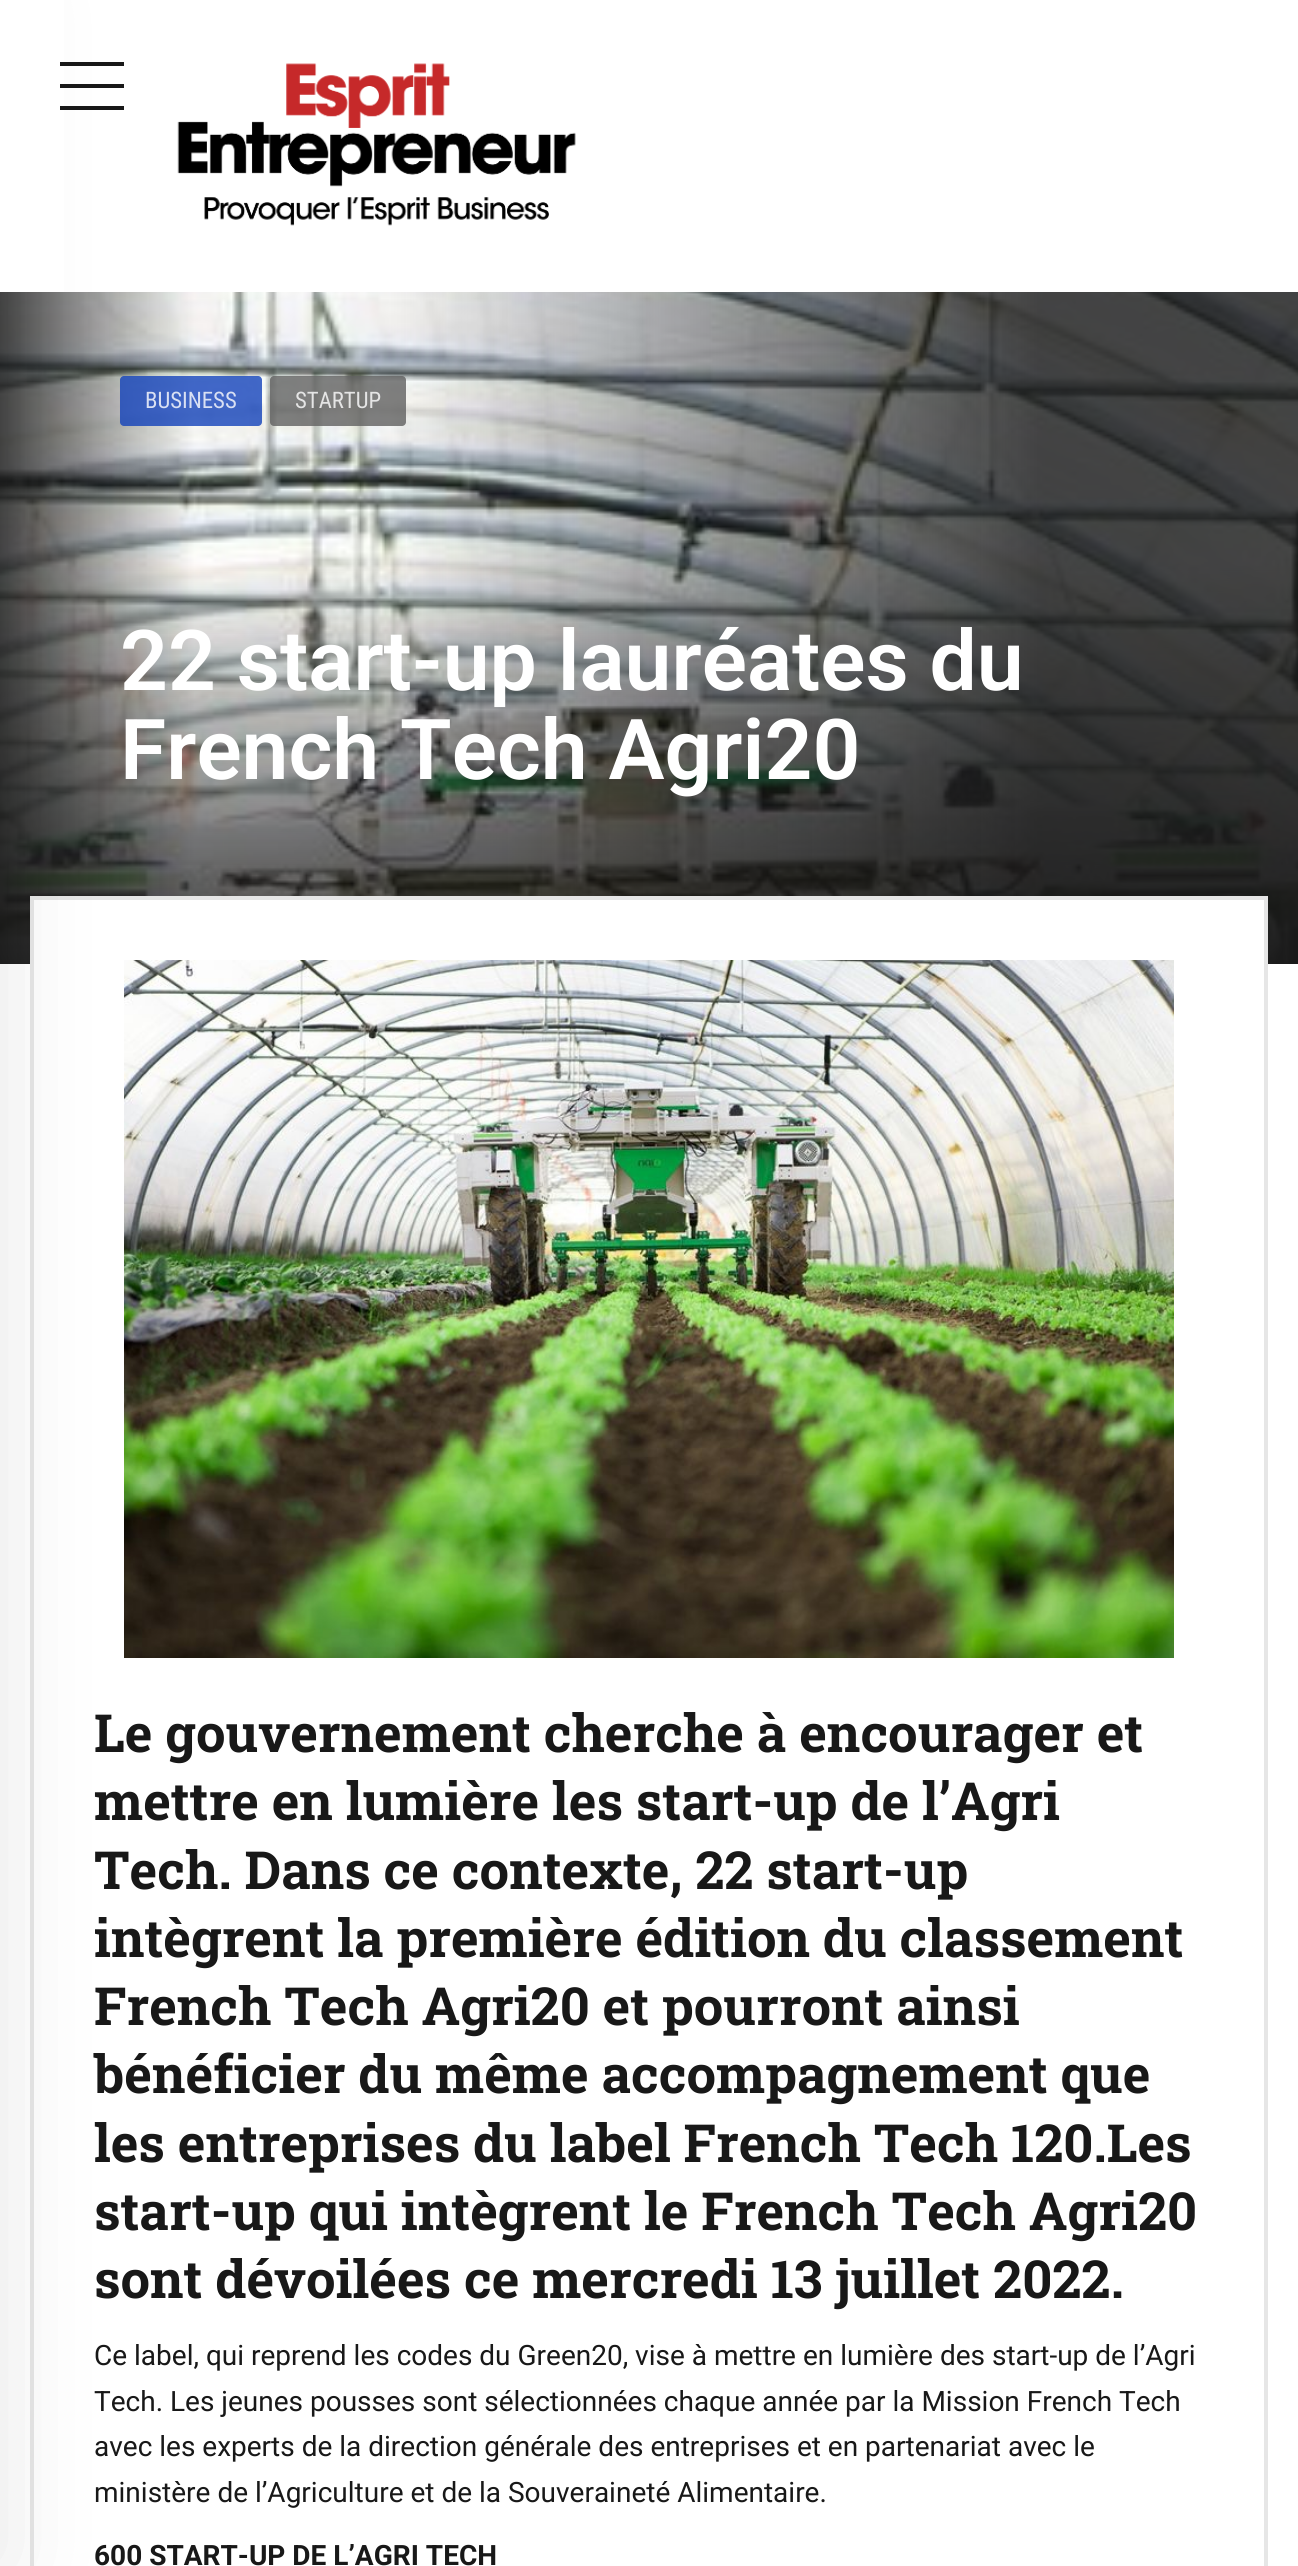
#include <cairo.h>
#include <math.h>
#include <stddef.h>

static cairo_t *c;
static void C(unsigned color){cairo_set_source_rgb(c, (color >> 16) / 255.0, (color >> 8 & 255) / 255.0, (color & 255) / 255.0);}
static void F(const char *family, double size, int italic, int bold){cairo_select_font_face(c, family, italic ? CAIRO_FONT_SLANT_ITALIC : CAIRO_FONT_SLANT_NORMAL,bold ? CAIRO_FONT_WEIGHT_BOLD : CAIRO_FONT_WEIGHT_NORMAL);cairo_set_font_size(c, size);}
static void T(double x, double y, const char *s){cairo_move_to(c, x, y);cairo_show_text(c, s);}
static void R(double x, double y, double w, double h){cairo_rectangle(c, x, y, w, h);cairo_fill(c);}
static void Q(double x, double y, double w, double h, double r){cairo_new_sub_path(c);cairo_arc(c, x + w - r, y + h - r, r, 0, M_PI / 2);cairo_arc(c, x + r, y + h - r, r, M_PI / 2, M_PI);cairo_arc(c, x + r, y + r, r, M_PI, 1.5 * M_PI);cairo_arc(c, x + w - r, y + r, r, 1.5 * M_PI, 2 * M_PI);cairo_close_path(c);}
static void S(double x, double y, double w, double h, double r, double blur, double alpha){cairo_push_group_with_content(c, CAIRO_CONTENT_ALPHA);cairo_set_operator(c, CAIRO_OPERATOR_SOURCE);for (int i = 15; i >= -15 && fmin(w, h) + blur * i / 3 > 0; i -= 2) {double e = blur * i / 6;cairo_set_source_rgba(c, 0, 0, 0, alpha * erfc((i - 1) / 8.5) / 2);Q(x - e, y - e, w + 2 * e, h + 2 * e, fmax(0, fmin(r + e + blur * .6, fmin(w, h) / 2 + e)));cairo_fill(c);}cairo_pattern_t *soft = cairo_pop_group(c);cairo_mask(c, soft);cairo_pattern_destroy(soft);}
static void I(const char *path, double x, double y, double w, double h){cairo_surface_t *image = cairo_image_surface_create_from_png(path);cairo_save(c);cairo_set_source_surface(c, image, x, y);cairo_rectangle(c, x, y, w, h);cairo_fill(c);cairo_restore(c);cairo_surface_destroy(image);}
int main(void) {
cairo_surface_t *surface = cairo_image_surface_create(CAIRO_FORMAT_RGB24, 1298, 2566);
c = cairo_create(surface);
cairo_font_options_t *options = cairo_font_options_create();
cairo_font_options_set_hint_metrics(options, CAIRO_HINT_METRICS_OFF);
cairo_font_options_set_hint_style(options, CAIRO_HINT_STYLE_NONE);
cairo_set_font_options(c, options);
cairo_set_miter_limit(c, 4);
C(0xffffff);
cairo_paint(c);
I("2.png",0,292,1298,672);
cairo_set_source_rgba(c,0.075,0.259,0.729,0.8);
Q(120,376,142,50,4);
cairo_fill(c);
C(0xffffff);
R(34,900,1230,64);
cairo_rectangle(c,32,898,1234,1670);
C(0xe6e6e6);
cairo_set_line_width(c,4);
cairo_stroke(c);
I("3.png",124,960,1050,698);
C(0x000000);
S(-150,0,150,2566,0,50,.1);
C(0xffffff);
R(0,0,64,292);
C(0x181818);
R(60,62,64,4);
R(60,84,64,4);
R(60,106,64,4);
I("1.png",177,63,399,163);
F("Roboto Condensed",22.75,0,0);
C(0xd9e0f3);
T(145,408,"BUSINESS");
cairo_set_source_rgba(c,0.38,0.38,0.38,0.8);
Q(270,376,136,50,4);
cairo_fill(c);
C(0xe5e5e5);
T(295,408,"STARTUP");
F("Roboto SemiBold",84,0,0);
C(0xffffff);
T(120,690,"22 start-up lauréates du");
T(120,779,"French Tech Agri20");
F("Roboto Slab",52.5,0,1);
C(0x181818);
T(94,1752,"Le gouvernement cherche à encourager et");
T(94,1820,"mettre en lumière les start-up de l’Agri");
T(94,1889,"Tech. Dans ce contexte, 22 start-up");
T(94,1957,"intègrent la première édition du classement");
T(94,2025,"French Tech Agri20 et pourront ainsi");
T(94,2093,"bénéficier du même accompagnement que");
T(94,2162,"les entreprises du label French Tech 120.Les");
T(94,2230,"start-up qui intègrent le French Tech Agri20");
T(94,2298,"sont dévoilées ce mercredi 13 juillet 2022.");
F("Roboto",28,0,0);
T(94,2365,"Ce label, qui reprend les codes du Green20, vise à mettre en lumière des start-up de l’Agri");
T(94,2411,"Tech. Les jeunes pousses sont sélectionnées chaque année par la Mission French Tech");
T(94,2456,"avec les experts de la direction générale des entreprises et en partenariat avec le");
T(94,2502,"ministère de l’Agriculture et de la Souveraineté Alimentaire.");
F("Roboto",28,0,1);
T(94,2565,"600 START-UP DE L’AGRI TECH");
cairo_surface_write_to_png(surface, "o.png");
cairo_font_options_destroy(options);
cairo_destroy(c);
cairo_surface_destroy(surface);
return 0;
}
